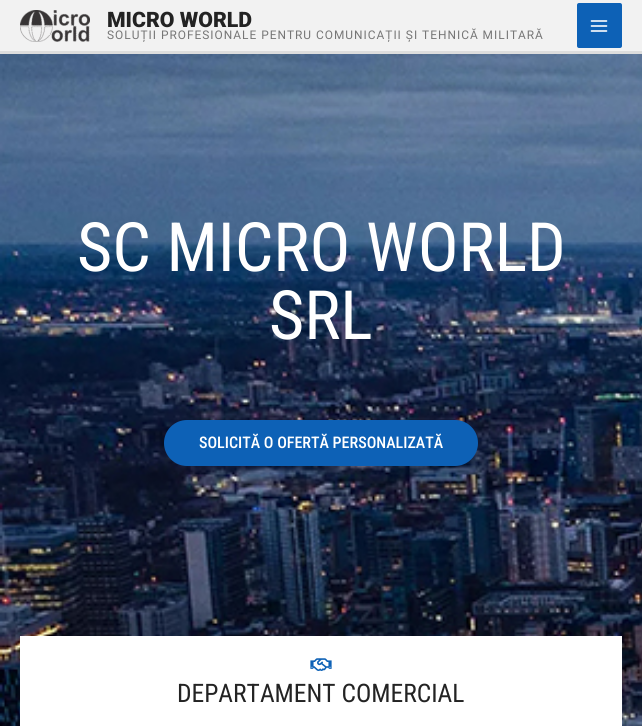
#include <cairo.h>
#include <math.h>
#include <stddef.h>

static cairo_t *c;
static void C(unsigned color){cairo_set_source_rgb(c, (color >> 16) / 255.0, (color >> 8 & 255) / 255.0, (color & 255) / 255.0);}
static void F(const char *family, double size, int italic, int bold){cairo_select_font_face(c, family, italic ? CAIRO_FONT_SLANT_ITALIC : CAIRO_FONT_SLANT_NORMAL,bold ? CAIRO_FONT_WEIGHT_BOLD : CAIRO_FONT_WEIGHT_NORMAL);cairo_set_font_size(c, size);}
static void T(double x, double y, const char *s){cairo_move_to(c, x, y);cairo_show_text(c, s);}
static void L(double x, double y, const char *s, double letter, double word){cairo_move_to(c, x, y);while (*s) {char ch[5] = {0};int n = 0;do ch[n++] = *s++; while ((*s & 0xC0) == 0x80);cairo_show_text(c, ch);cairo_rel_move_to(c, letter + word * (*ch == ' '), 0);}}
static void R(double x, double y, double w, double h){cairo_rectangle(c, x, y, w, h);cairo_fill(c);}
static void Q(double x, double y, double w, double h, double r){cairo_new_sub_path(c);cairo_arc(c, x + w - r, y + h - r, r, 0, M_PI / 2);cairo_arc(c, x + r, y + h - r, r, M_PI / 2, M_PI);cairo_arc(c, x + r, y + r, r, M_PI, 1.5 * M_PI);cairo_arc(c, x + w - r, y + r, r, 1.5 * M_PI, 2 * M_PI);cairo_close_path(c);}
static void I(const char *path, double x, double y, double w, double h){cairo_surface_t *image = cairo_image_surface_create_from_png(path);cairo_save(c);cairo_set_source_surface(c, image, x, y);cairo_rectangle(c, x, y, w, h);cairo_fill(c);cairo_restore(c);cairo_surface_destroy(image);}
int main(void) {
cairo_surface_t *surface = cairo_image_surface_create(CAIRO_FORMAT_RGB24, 642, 726);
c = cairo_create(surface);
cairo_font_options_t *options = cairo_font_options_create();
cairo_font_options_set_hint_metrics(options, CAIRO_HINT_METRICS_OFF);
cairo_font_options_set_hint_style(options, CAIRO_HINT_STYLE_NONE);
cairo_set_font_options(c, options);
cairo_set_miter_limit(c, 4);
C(0xffffff);
cairo_paint(c);
C(0xf2f2f2);
R(0,0,642,51);
C(0xdddddd);
R(0,51,642,3);
I("1.png",20,10,70,32);
F("Roboto Black",21.25,0,0);
C(0x232323);
T(107,27,"MICRO WORLD");
F("Roboto",11.9,0,0);
C(0x767676);
L(107,39,"SOLUȚII PROFESIONALE PENTRU COMUNICAȚII ȘI TEHNICĂ MILITARĂ",1,0);
C(0x0d61b6);
Q(577,3,45,45,2);
cairo_fill(c);
I("2.png",590,20,18,12);
I("3.png",0,54,642,672);
F("Roboto Condensed",68,0,0);
C(0xffffff);
T(77,271,"SC MICRO WORLD");
T(269,339,"SRL");
C(0x0d61b6);
Q(164,420,314,46,23);
cairo_fill(c);
F("Roboto Condensed Medium",16,0,0);
C(0xffffff);
T(199,448,"SOLICITĂ O OFERTĂ PERSONALIZATĂ");
R(20,636,602,90);
I("4.png",310,658,22,13);
F("Roboto Condensed",25.5,0,0);
C(0x232323);
T(177,702,"DEPARTAMENT COMERCIAL");
cairo_surface_write_to_png(surface, "o.png");
cairo_font_options_destroy(options);
cairo_destroy(c);
cairo_surface_destroy(surface);
return 0;
}
